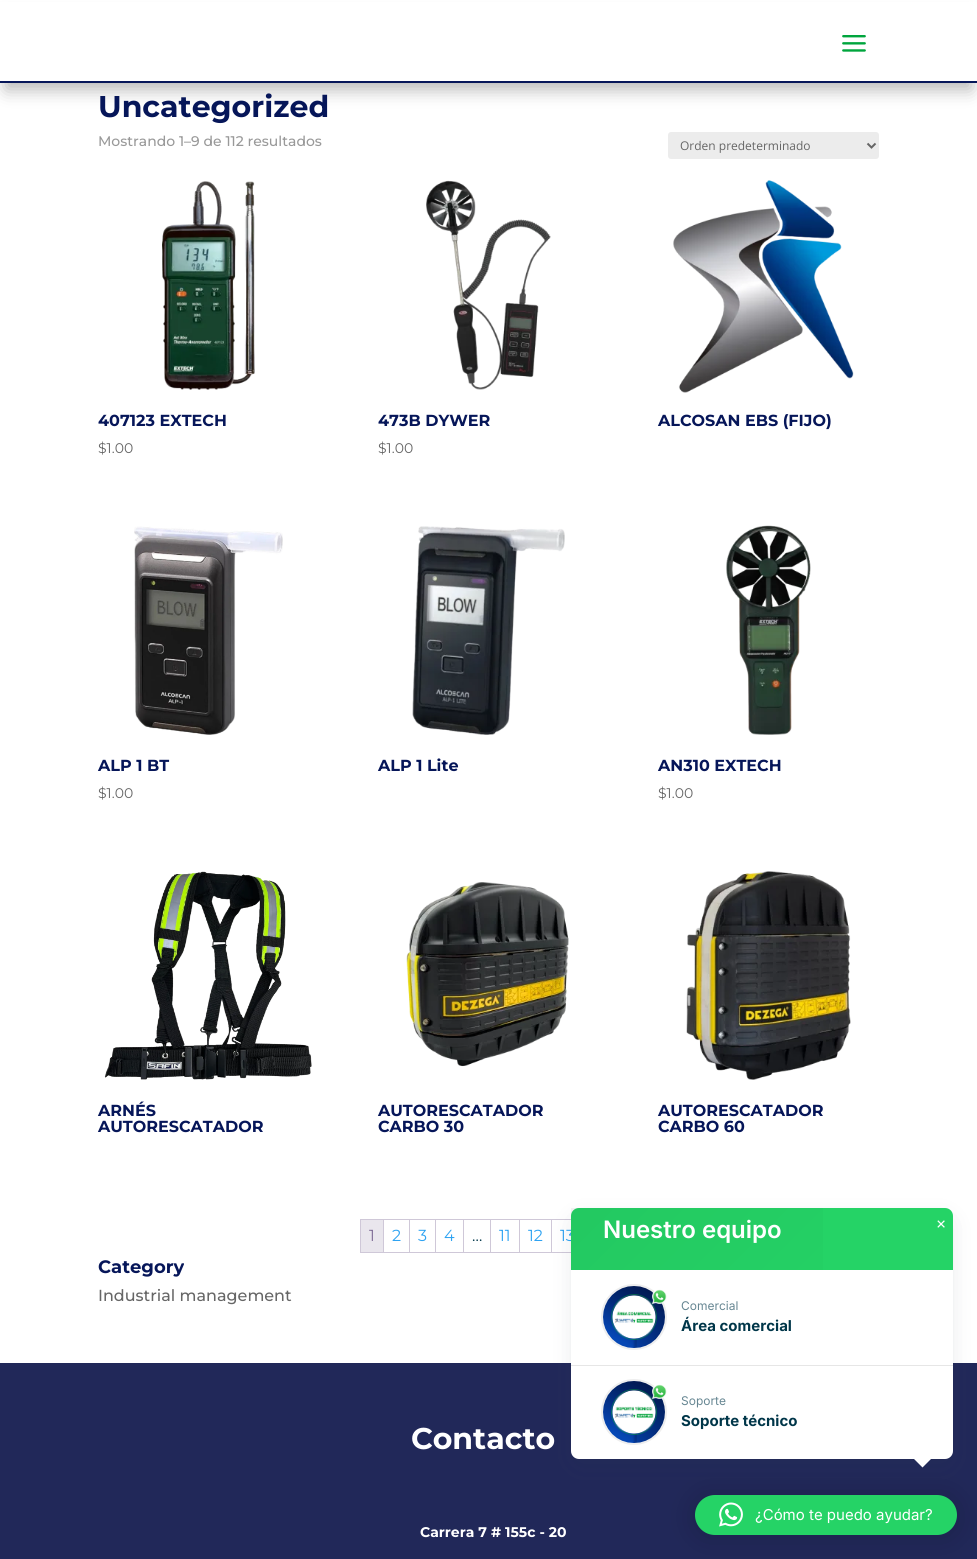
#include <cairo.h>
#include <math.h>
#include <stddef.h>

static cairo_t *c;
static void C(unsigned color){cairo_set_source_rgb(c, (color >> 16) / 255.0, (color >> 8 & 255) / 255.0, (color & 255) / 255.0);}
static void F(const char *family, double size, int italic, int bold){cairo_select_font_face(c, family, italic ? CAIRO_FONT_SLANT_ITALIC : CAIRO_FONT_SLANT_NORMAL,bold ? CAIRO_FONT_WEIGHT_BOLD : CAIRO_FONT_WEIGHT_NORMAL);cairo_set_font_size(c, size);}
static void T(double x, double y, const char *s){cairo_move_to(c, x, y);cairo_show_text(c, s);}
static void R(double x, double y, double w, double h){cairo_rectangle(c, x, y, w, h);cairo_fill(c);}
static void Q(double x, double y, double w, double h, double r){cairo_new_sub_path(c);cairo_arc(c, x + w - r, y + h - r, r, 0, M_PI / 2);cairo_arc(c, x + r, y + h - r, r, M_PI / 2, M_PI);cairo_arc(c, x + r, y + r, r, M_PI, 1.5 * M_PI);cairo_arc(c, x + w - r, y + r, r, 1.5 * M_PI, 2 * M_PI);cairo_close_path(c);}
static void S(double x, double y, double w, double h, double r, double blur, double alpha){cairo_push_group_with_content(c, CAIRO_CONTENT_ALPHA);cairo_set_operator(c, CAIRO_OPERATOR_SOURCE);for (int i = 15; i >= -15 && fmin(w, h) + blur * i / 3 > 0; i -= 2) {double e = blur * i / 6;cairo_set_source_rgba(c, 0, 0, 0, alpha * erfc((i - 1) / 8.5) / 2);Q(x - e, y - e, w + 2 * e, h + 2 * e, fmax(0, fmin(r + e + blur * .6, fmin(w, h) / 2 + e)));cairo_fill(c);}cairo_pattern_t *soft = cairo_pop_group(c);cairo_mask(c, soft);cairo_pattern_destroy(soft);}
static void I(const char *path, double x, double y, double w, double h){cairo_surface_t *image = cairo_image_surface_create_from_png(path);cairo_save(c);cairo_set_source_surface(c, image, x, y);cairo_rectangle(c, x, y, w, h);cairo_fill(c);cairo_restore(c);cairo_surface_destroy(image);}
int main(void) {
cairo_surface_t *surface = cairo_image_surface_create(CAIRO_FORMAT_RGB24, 977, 1559);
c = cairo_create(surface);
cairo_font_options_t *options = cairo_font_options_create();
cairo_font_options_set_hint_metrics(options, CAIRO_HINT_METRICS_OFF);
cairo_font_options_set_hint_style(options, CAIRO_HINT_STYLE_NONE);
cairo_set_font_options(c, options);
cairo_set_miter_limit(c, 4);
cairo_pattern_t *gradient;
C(0xffffff);
cairo_paint(c);
C(0x000000);
S(6,18,965,71,0,9,.3);
C(0xffffff);
R(0,2,977,79);
C(0x061659);
R(0,81,977,2);
I("1.png",842,35,24,17);
F("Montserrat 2 Thin",30,0,0);
T(98,117,"Uncategorized");
F("Montserrat Thin",14,0,0);
C(0x999999);
T(98,146,"Mostrando 1–9 de 112 resultados");
C(0xececec);
Q(668,132,211,27,3);
cairo_fill(c);
cairo_new_path(c);
cairo_move_to(c,867.5,143.5);
cairo_line_to(c,871.5,147.5);
cairo_line_to(c,875.5,143.5);
C(0x666666);
cairo_stroke(c);
F("Open Sans",12,0,0);
T(680,150,"Orden predeterminado");
I("2.png",162,181,93,209);
F("Montserrat 2 Thin",16,0,0);
C(0x061659);
T(98,426,"407123 EXTECH");
F("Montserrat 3 Thin",14,0,0);
C(0x666666);
T(98,453,"$1.00");
I("3.png",426,180,125,210);
F("Montserrat 2 Thin",16,0,0);
C(0x061659);
T(378,426,"473B DYWER");
F("Montserrat 3 Thin",14,0,0);
C(0x666666);
T(378,453,"$1.00");
I("4.png",673,180,181,213);
F("Montserrat 2 Thin",16,0,0);
C(0x061659);
T(658,426,"ALCOSAN EBS (FIJO)");
I("5.png",134,526,149,209);
T(98,771,"ALP 1 BT");
F("Montserrat 3 Thin",14,0,0);
C(0x666666);
T(98,798,"$1.00");
I("6.png",412,526,153,209);
F("Montserrat 2 Thin",16,0,0);
C(0x061659);
T(378,771,"ALP 1 Lite");
I("7.png",726,525,85,210);
T(658,771,"AN310 EXTECH");
F("Montserrat 3 Thin",14,0,0);
C(0x666666);
T(658,798,"$1.00");
I("8.png",104,871,208,209);
F("Montserrat 2 Thin",16,0,0);
C(0x061659);
T(98,1116,"ARNÉS");
T(98,1132,"AUTORESCATADOR");
I("9.png",406,882,163,185);
T(378,1116,"AUTORESCATADOR");
T(378,1132,"CARBO 30");
I("10.png",686,871,165,209);
T(658,1116,"AUTORESCATADOR");
T(658,1132,"CARBO 60");
C(0xcfc8d8);
R(360,1219,211,1);
R(360,1252,211,1);
R(360,1219,1,34);
R(383,1220,1,32);
C(0xe9e6ed);
R(361,1220,22,32);
F("Montserrat 3 Thin",16,0,0);
C(0x816f98);
T(369,1241,"1");
C(0xcfc8d8);
R(409,1220,1,32);
C(0x2ea3f2);
T(392,1241,"2");
C(0xcfc8d8);
R(435,1220,1,32);
C(0x2ea3f2);
T(418,1241,"3");
C(0xcfc8d8);
R(463,1220,1,32);
C(0x2ea3f2);
T(444,1241,"4");
C(0xcfc8d8);
R(490,1220,1,32);
C(0x003649);
T(472,1241,"…");
C(0xcfc8d8);
R(519,1220,1,32);
C(0x2ea3f2);
T(499,1241,"11");
C(0xcfc8d8);
R(551,1220,1,32);
C(0x2ea3f2);
T(528,1241,"12");
T(560,1241,"13");
F("Montserrat 2 Thin",18,0,0);
C(0x061659);
T(98,1273,"Category");
F("Montserrat Thin",16,0,0);
C(0x666666);
T(98,1301,"Industrial management");
C(0x212859);
R(0,1363,977,196);
F("Montserrat 2 Thin",30,0,0);
C(0xffffff);
T(411,1449,"Contacto");
F("Montserrat 2 Thin",14,0,0);
T(420,1537,"Carrera 7 # 155c - 20");
C(0x000000);
S(695,1497,262,40,20,16,.16);
C(0x25d366);
Q(695,1495,262,40,20);
cairo_fill(c);
C(0x2d3e4f);
S(576,1221,372,241,3,12.5,.15);
C(0xffffff);
Q(571,1208,382,251,8);
cairo_fill(c);
C(0x25d366);
cairo_new_path(c);
cairo_move_to(c,579,1208);
cairo_line_to(c,945,1208);
cairo_curve_to(c,949.5,1208,953,1211.5,953,1216);
cairo_line_to(c,953,1270);
cairo_line_to(c,571,1270);
cairo_line_to(c,571,1216);
cairo_curve_to(c,571,1211.5,574.5,1208,579,1208);
cairo_close_path(c);
cairo_fill(c);
gradient = cairo_pattern_create_linear(873,1350,651,1128);
cairo_pattern_add_color_stop_rgba(gradient,0,0,0,0,0);
cairo_pattern_add_color_stop_rgba(gradient,1,0,0,0,.05);
cairo_set_source(c,gradient);
cairo_pattern_destroy(gradient);
R(571,1208,252,62);
F("Inter SemiBold",24,0,0);
C(0xffffff);
T(603,1238,"Nuestro equipo");
F("Liberation Serif",18,0,1);
T(936,1230,"×");
cairo_new_path(c);
cairo_arc(c,634,1317,32,0,2 * M_PI);
C(0xeeeeee);
cairo_stroke(c);
I("11.png",603,1286,62,62);
I("12.png",652,1289,15,15);
F("Inter",12,0,0);
C(0x668692);
T(681,1310,"Comercial");
F("Inter",15,0,1);
C(0x003649);
T(681,1331,"Área comercial");
C(0xe6e6e6);
R(571,1365,382,1);
cairo_new_path(c);
cairo_arc(c,634,1412,32,0,2 * M_PI);
C(0xeeeeee);
cairo_stroke(c);
I("13.png",603,1381,62,62);
I("14.png",652,1384,15,15);
F("Inter",12,0,0);
C(0x668692);
T(681,1405,"Soporte");
F("Inter",15,0,1);
C(0x003649);
T(681,1426,"Soporte técnico");
C(0xffffff);
cairo_new_path(c);
cairo_move_to(c,922.5,1449.5);
cairo_line_to(c,931.5,1458.5);
cairo_line_to(c,922.5,1467.5);
cairo_line_to(c,913.5,1458.5);
cairo_close_path(c);
cairo_fill(c);
I("15.png",719,1502,24,25);
F("Inter",15,0,0);
T(755,1520,"¿Cómo te puedo ayudar?");
cairo_surface_write_to_png(surface, "o.png");
cairo_font_options_destroy(options);
cairo_destroy(c);
cairo_surface_destroy(surface);
return 0;
}
